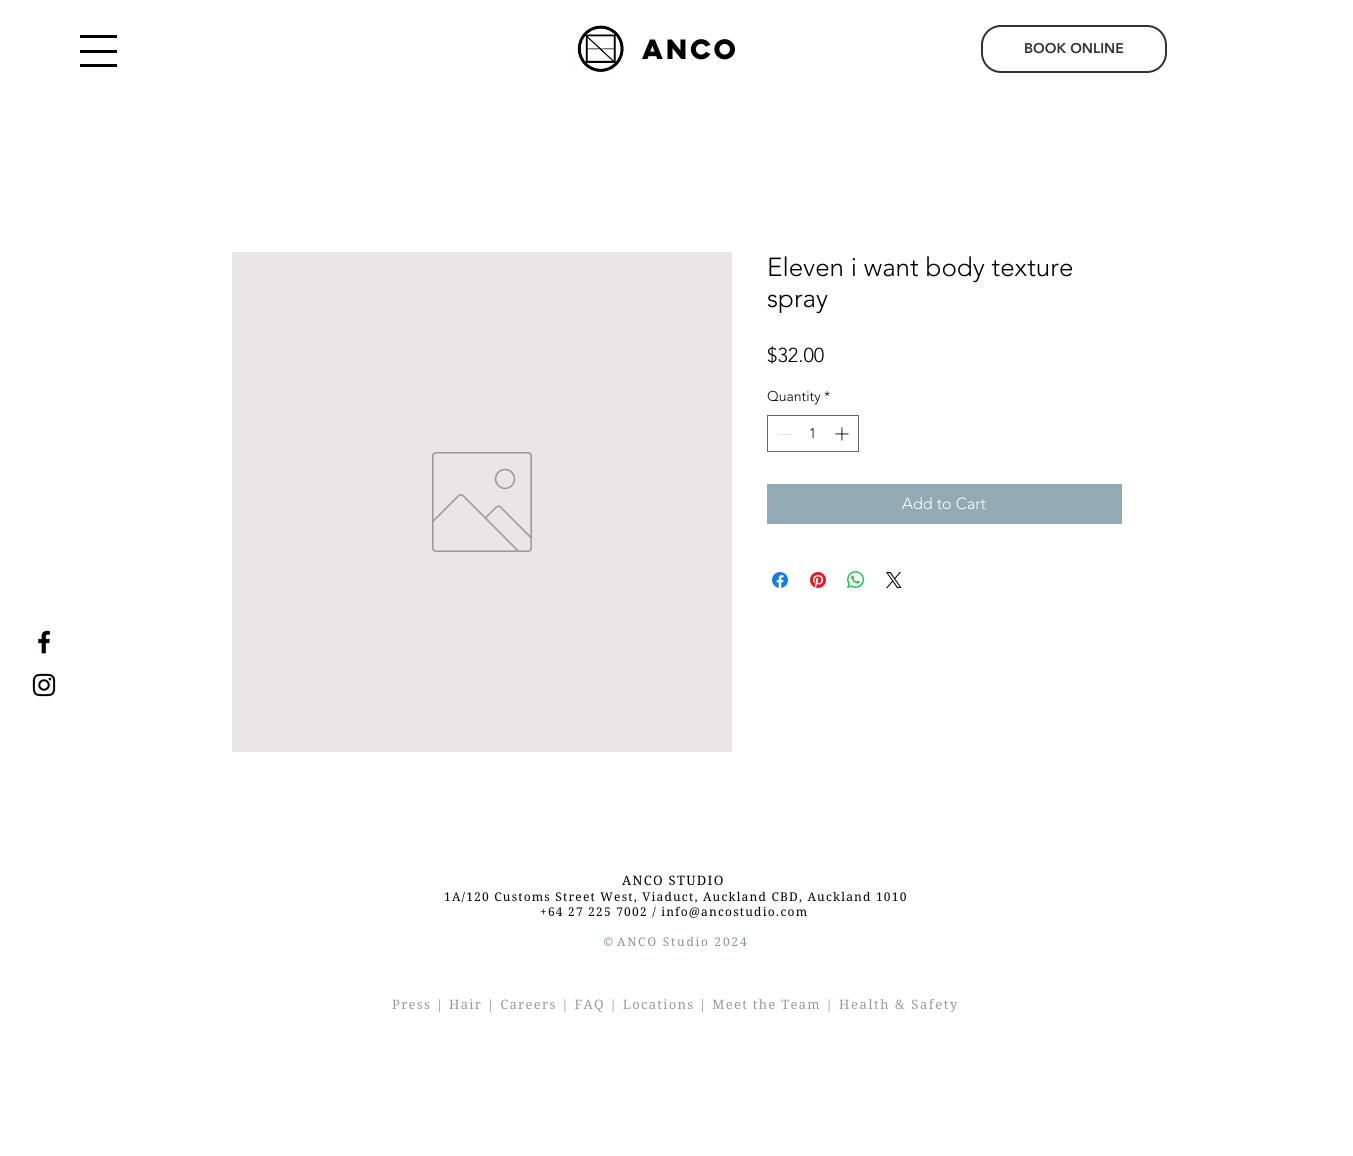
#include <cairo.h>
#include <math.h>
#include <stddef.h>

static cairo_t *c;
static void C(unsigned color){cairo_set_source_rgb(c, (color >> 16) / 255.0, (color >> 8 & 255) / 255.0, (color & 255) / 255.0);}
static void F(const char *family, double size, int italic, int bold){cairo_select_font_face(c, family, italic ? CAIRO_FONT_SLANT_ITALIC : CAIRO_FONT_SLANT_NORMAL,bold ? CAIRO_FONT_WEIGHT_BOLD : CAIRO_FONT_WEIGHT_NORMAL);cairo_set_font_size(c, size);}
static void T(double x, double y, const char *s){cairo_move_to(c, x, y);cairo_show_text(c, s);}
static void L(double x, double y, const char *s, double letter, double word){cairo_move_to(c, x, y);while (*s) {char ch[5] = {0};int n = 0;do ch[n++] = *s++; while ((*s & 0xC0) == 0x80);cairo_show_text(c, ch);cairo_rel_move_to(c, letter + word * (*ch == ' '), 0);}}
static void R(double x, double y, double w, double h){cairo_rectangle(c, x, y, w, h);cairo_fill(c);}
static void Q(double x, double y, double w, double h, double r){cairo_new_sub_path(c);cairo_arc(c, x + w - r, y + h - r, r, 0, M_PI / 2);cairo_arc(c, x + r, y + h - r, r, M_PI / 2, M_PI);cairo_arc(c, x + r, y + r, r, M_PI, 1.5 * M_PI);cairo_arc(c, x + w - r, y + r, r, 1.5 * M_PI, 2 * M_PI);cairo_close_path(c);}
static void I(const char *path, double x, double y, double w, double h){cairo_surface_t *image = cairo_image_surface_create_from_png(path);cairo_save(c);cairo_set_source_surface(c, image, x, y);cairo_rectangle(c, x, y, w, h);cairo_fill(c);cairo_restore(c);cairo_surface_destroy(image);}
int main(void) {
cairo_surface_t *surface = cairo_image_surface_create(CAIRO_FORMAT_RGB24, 1353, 1156);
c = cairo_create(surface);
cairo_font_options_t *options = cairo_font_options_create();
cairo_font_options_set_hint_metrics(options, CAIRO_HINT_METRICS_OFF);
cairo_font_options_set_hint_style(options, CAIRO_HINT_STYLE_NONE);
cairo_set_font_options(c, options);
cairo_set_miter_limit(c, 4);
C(0xffffff);
cairo_paint(c);
C(0x000000);
R(80,35,37,3);
R(80,50,37,3);
R(80,64,37,3);
I("1.png",575,25,51,48);
F("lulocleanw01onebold",25,0,1);
L(642,59,"Anco",-2.5,0);
Q(982,26,184,46,19);
C(0x323232);
cairo_stroke(c);
F("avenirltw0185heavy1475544 Black",14,0,0);
T(1024,53,"BOOK ONLINE");
C(0xe8e6e6);
R(232,252,500,500);
I("2.png",432,452,100,100);
F("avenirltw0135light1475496 Light",26,0,0);
C(0x000000);
T(767,276,"Eleven i want body texture");
T(767,307,"spray");
F("avenirltw0135light1475496 Light",20,0,0);
T(767,362,"$32.00");
F("avenirltw0135light1475496 Light",14,0,0);
T(767,401,"Quantity");
T(824,401,"*");
cairo_rectangle(c,767.5,415.5,91,36);
C(0x666666);
cairo_set_line_width(c,1);
cairo_stroke(c);
C(0xe3e3e3);
R(779,434,13,1);
C(0x000000);
T(809,438,"1");
I("3.png",835,427,14,14);
C(0x91aab3);
R(767,484,355,40);
F("avenirltw0135light1475496 Light",16,0,0);
C(0xffffff);
T(902,509,"Add to Cart");
I("4.png",772,572,16,16);
I("5.png",810,572,16,16);
I("6.png",847,571,17,17);
I("7.png",886,572,16,16);
I("8.png",38,630,13,24);
I("9.png",32,673,24,24);
F("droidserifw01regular",13,0,0);
C(0x000000);
L(622,885,"ANCO STUDIO",1.3,0);
F("droidserifw01regular",12,0,0);
L(444,901,"1A/120 Customs Street West, Viaduct, Auckland CBD, Auckland 1010",1.2,0);
L(540,916,"+64 27 225 7002 / info@ancostudio.com",1.2,0);
C(0x869194);
L(603,946,"©",4,0);
L(617,946,"ANCO Studio 2024",1.75,0);
F("droidserifw01regular",13,0,0);
C(0x999997);
L(392,1009,"Press | Hair | Careers | FAQ | Locations | Meet the Team |",1.3,0);
L(839,1009,"Health & Safety",1.6,0);
cairo_surface_write_to_png(surface, "o.png");
cairo_font_options_destroy(options);
cairo_destroy(c);
cairo_surface_destroy(surface);
return 0;
}
